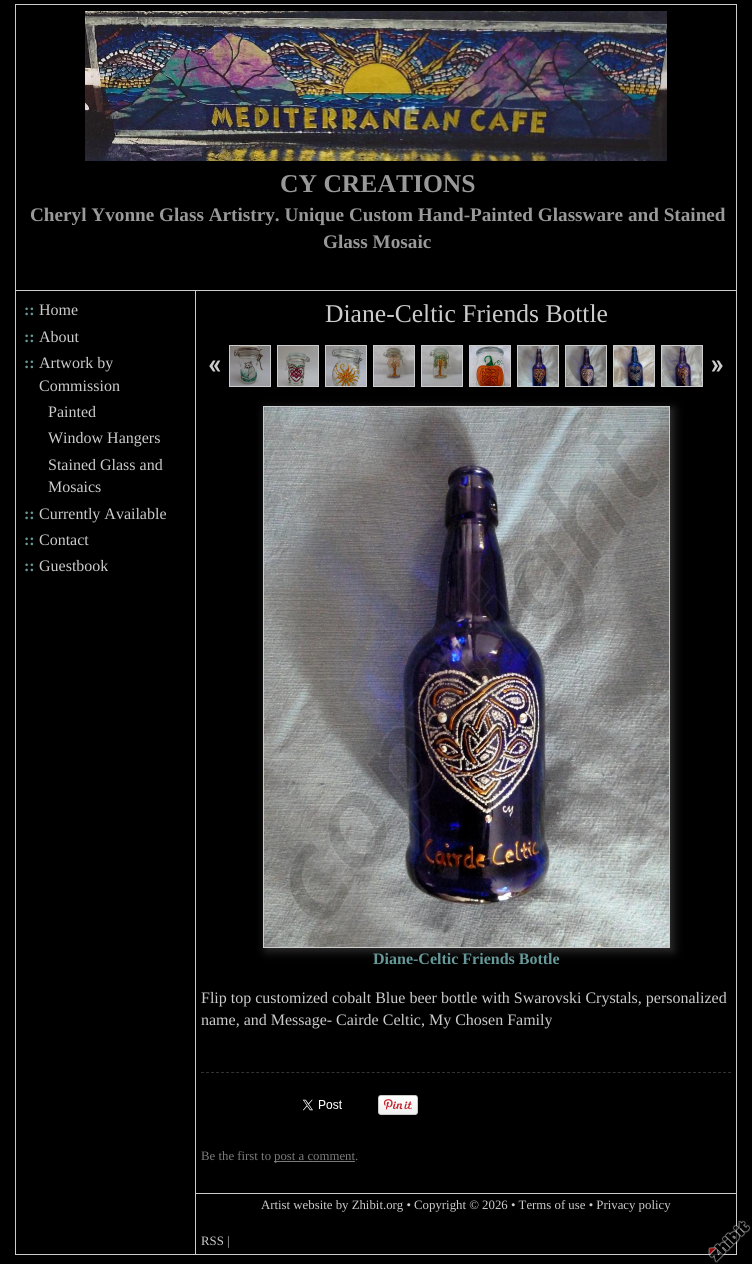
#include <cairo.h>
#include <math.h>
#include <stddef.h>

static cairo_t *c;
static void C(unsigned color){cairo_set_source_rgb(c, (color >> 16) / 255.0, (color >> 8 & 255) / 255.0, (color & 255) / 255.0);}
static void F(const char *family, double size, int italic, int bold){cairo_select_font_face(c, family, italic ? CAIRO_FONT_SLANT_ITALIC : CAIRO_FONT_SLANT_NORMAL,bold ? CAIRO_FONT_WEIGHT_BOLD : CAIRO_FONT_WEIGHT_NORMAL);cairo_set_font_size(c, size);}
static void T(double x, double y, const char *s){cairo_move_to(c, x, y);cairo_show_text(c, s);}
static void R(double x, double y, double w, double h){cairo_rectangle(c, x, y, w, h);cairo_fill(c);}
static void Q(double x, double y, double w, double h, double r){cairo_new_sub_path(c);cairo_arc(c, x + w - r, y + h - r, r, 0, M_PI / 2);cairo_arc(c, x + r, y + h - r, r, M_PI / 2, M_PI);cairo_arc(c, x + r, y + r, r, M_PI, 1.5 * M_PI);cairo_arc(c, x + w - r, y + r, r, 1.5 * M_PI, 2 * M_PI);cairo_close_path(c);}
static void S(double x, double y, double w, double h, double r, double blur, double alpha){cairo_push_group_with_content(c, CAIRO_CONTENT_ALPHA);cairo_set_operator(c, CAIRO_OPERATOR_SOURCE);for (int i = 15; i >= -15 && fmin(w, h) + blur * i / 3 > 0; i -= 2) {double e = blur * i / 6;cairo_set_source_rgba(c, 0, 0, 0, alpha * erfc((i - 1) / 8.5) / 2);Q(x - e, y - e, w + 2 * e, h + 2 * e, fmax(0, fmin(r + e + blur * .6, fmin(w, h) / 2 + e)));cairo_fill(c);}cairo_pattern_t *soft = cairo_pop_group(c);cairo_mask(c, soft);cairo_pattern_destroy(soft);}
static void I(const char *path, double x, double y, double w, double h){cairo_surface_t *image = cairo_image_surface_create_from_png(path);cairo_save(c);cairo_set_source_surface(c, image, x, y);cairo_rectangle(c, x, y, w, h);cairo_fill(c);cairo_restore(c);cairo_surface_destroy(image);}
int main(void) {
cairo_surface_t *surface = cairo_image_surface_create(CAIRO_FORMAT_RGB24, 752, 1264);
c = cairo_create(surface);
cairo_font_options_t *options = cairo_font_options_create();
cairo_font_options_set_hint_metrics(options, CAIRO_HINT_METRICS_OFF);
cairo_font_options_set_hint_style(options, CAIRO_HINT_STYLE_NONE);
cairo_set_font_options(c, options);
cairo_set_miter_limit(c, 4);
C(0x000000);
cairo_paint(c);
cairo_rectangle(c,15.5,4.5,721,1250);
C(0xcccccc);
cairo_set_line_width(c,1);
cairo_stroke(c);
I("1.png",85,11,582,150);
F("Liberation Serif",25.6,0,1);
C(0x999999);
T(280,192,"CY CREATIONS");
F("Liberation Serif",19.2,0,1);
T(30,221,"Cheryl Yvonne Glass Artistry. Unique Custom Hand-Painted Glassware and Stained");
T(323,248,"Glass Mosaic");
C(0xcccccc);
R(16,290,720,1);
R(195,291,1,963);
F("Liberation Serif",16,0,1);
C(0x669999);
T(24,315,"::");
F("Liberation Serif",16,0,0);
C(0xcccccc);
T(39,315,"Home");
F("Liberation Serif",16,0,1);
C(0x669999);
T(24,342,"::");
F("Liberation Serif",16,0,0);
C(0xcccccc);
T(39,342,"About");
F("Liberation Serif",16,0,1);
C(0x669999);
T(24,368,"::");
F("Liberation Serif",16,0,0);
C(0xcccccc);
T(39,368,"Artwork by");
T(39,391,"Commission");
T(48,417,"Painted");
T(48,443,"Window Hangers");
T(48,470,"Stained Glass and");
T(48,492,"Mosaics");
F("Liberation Serif",16,0,1);
C(0x669999);
T(24,519,"::");
F("Liberation Serif",16,0,0);
C(0xcccccc);
T(39,519,"Currently Available");
F("Liberation Serif",16,0,1);
C(0x669999);
T(24,545,"::");
F("Liberation Serif",16,0,0);
C(0xcccccc);
T(39,545,"Contact");
F("Liberation Serif",16,0,1);
C(0x669999);
T(24,571,"::");
F("Liberation Serif",16,0,0);
C(0xcccccc);
T(39,571,"Guestbook");
F("Liberation Serif",25.6,0,0);
T(325,322,"Diane-Celtic Friends Bottle");
I("2.png",209,360,12,12);
cairo_rectangle(c,229.5,345.5,41,41);
cairo_stroke(c);
I("3.png",230,346,40,40);
cairo_rectangle(c,277.5,345.5,41,41);
cairo_stroke(c);
I("4.png",278,346,40,40);
cairo_rectangle(c,325.5,345.5,41,41);
cairo_stroke(c);
I("5.png",326,346,40,40);
cairo_rectangle(c,373.5,345.5,41,41);
cairo_stroke(c);
I("6.png",374,346,40,40);
cairo_rectangle(c,421.5,345.5,41,41);
cairo_stroke(c);
I("7.png",422,346,40,40);
cairo_rectangle(c,469.5,345.5,41,41);
cairo_stroke(c);
I("8.png",470,346,40,40);
cairo_rectangle(c,517.5,345.5,41,41);
cairo_stroke(c);
I("9.png",518,346,40,40);
cairo_rectangle(c,565.5,345.5,41,41);
cairo_stroke(c);
I("10.png",566,346,40,40);
cairo_rectangle(c,613.5,345.5,41,41);
cairo_stroke(c);
I("11.png",614,346,40,40);
cairo_rectangle(c,661.5,345.5,41,41);
cairo_stroke(c);
I("12.png",662,346,40,40);
I("13.png",711,360,12,12);
C(0x333333);
S(266,409,407,542,0,5,1);
cairo_rectangle(c,263.5,406.5,406,541);
C(0xcccccc);
cairo_stroke(c);
I("14.png",264,407,405,540);
F("Liberation Serif",16,0,1);
C(0x669999);
T(373,964,"Diane-Celtic Friends Bottle");
F("Liberation Serif",16,0,0);
C(0xcccccc);
T(201,1003,"Flip top customized cobalt Blue beer bottle with Swarovski Crystals, personalized");
T(201,1025,"name, and Message- Cairde Celtic, My Chosen Family");
cairo_new_path(c);
cairo_move_to(c,201,1072.5);
cairo_line_to(c,731,1072.5);
C(0x333333);
cairo_set_dash(c,(double[]){3,2.02},2,0);
cairo_stroke(c);
I("15.png",302,1099,40,12);
I("16.png",378,1095,40,20);
F("Liberation Serif",12.8,0,0);
C(0x7a7a7a);
T(201,1160,"Be the first to");
R(274,1161,81,1);
T(274,1160,"post a comment.");
C(0xcccccc);
R(196,1193,540,1);
T(261,1209,"Artist website by Zhibit.org • Copyright © 2026 • Terms of use • Privacy policy");
T(201,1245,"RSS |");
I("17.png",708,1220,43,43);
cairo_surface_write_to_png(surface, "o.png");
cairo_font_options_destroy(options);
cairo_destroy(c);
cairo_surface_destroy(surface);
return 0;
}
